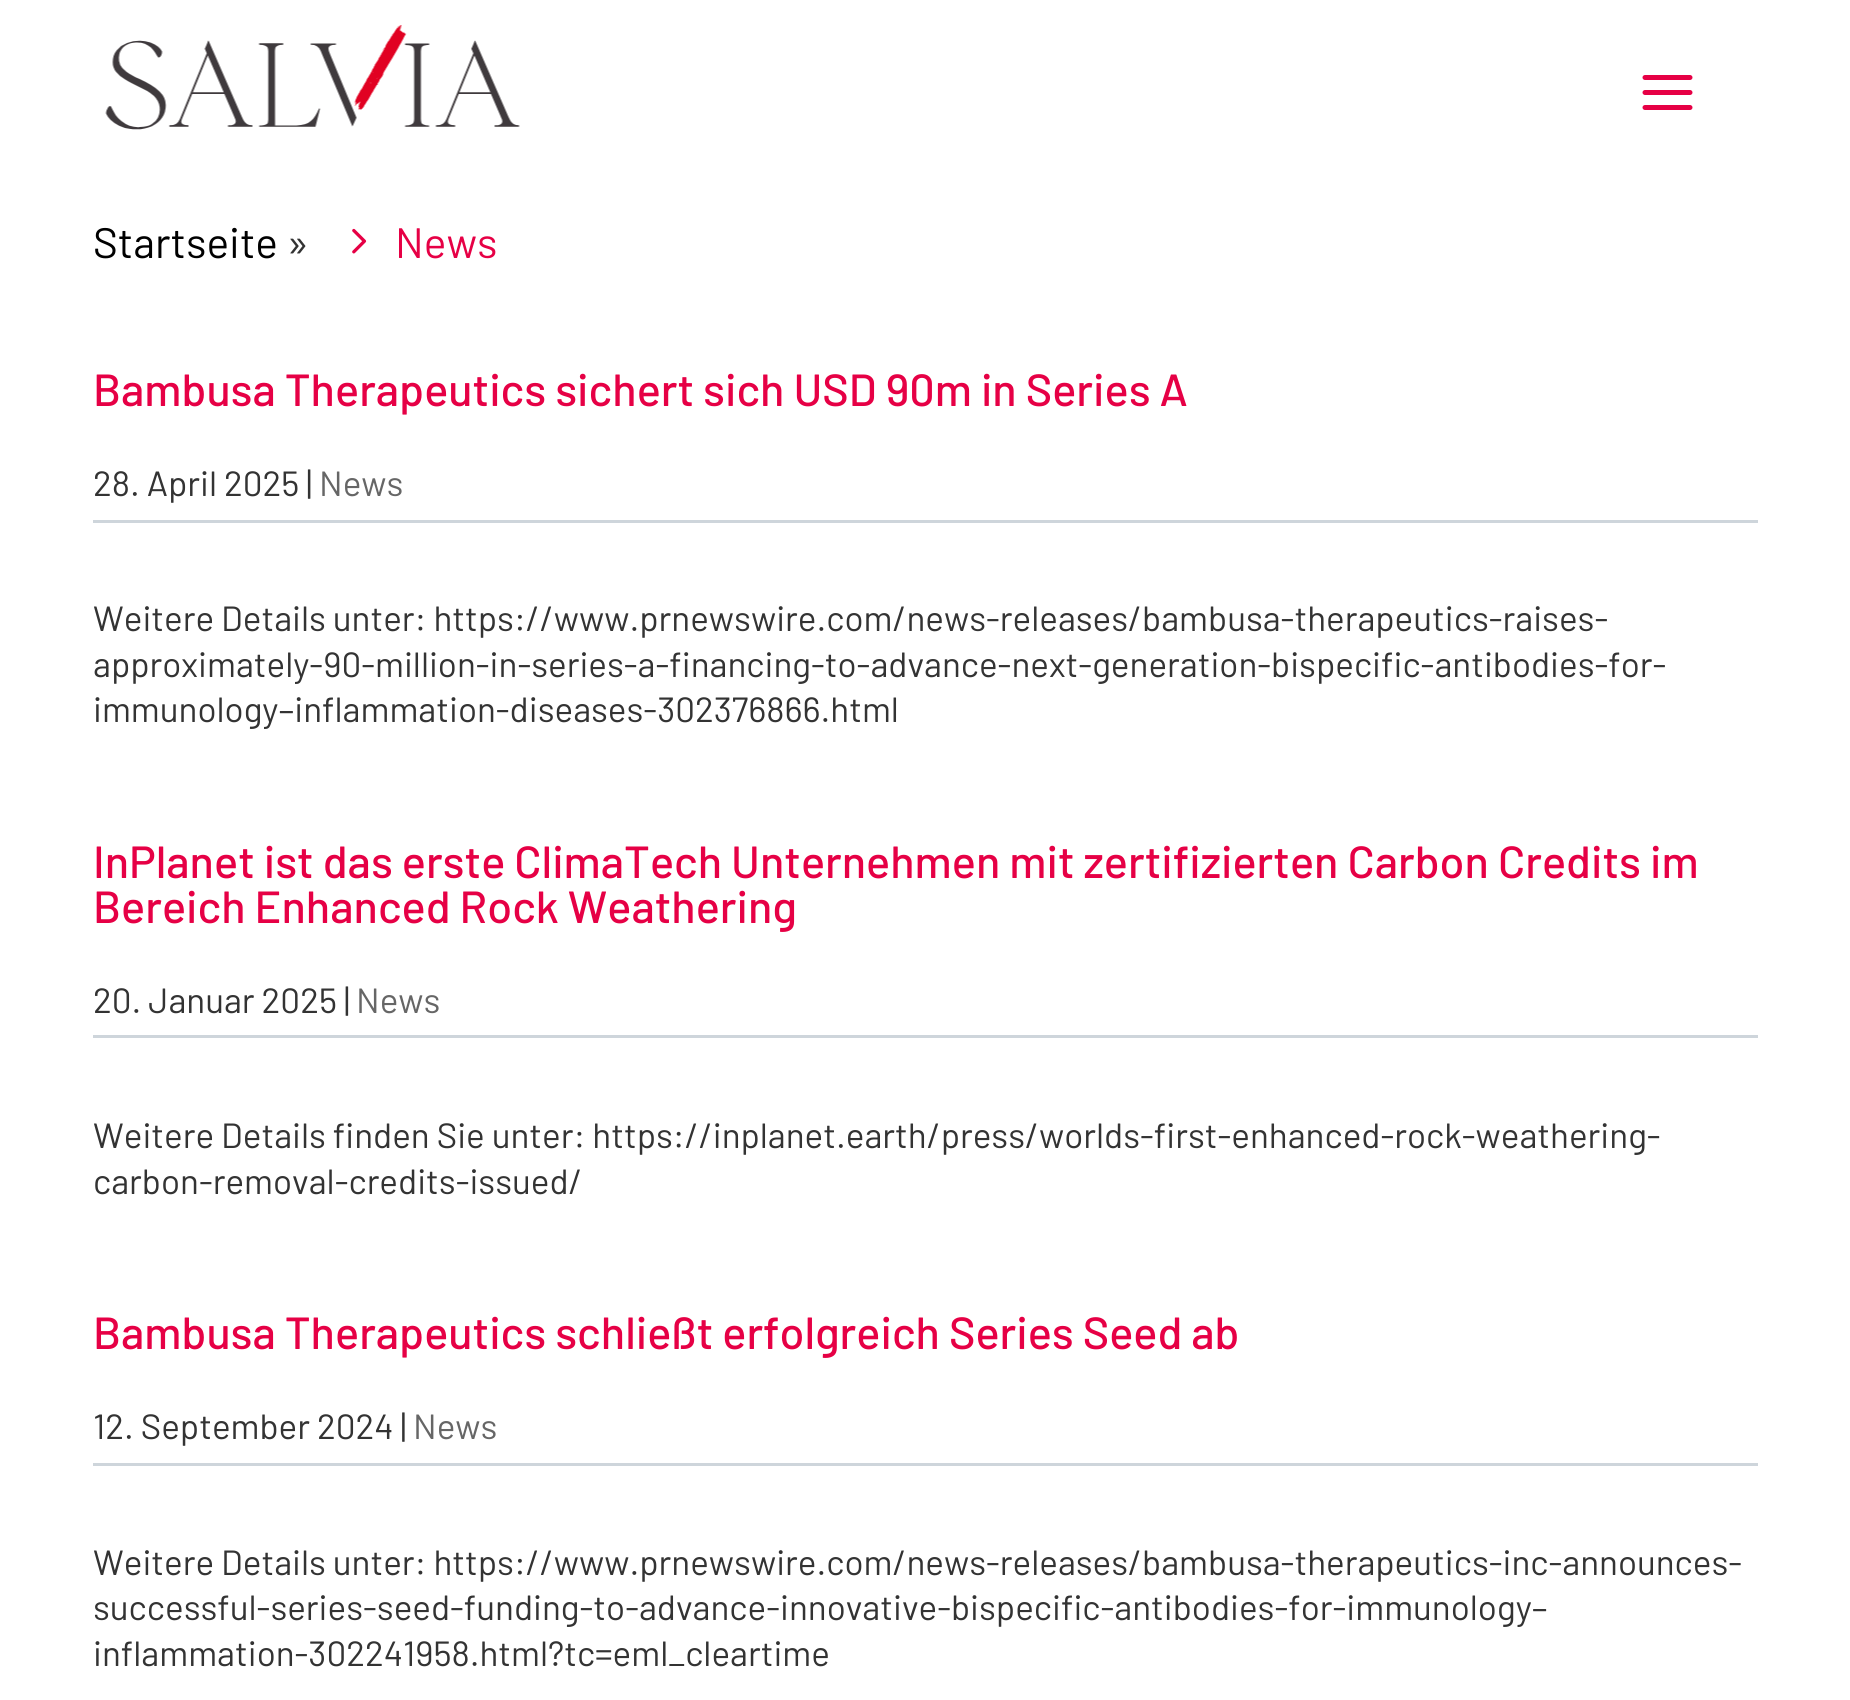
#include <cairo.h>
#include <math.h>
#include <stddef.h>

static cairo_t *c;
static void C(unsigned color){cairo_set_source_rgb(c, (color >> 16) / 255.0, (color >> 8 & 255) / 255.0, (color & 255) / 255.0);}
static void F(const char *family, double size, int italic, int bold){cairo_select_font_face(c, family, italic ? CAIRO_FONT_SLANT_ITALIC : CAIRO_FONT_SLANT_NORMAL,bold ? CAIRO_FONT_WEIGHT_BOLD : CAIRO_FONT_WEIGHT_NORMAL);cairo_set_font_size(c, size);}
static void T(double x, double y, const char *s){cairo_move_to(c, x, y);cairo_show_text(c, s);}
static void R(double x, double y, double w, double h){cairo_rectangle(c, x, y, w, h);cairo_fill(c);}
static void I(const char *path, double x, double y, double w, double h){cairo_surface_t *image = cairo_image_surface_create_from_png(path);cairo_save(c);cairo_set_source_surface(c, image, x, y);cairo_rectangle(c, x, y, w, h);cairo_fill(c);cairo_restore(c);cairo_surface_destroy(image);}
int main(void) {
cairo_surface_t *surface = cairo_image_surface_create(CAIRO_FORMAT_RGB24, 1850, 1700);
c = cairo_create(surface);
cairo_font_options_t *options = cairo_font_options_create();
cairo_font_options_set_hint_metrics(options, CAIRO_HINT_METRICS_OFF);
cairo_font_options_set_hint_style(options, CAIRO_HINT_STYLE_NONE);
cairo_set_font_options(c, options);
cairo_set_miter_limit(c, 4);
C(0xffffff);
cairo_paint(c);
I("1.png",105,25,415,105);
I("2.png",1642,75,51,35);
F("Barlow",42.5,0,0);
C(0x000000);
T(93,258,"Startseite");
C(0x333333);
T(286,258,"»");
I("3.png",352,228,15,26);
C(0xe60045);
T(395,258,"News");
F("Barlow Medium",45,0,0);
T(93,406,"Bambusa Therapeutics sichert sich USD 90m in Series A");
C(0xced5db);
R(93,520,1665,3);
F("Barlow",35,0,0);
C(0x333333);
T(93,496,"28. April 2025 |");
C(0x666666);
T(319,496,"News");
C(0x333333);
T(93,631,"Weitere Details unter: https://www.prnewswire.com/news-releases/bambusa-therapeutics-raises-");
T(93,677,"approximately-90-million-in-series-a-financing-to-advance-next-generation-bispecific-antibodies-for-");
T(93,722,"immunology–inflammation-diseases-302376866.html");
F("Barlow Medium",45,0,0);
C(0xe60045);
T(93,878,"InPlanet ist das erste ClimaTech Unternehmen mit zertifizierten Carbon Credits im");
T(93,923,"Bereich Enhanced Rock Weathering");
C(0xced5db);
R(93,1035,1665,3);
F("Barlow",35,0,0);
C(0x333333);
T(93,1013,"20. Januar 2025 |");
C(0x666666);
T(356,1013,"News");
C(0x333333);
T(93,1148,"Weitere Details finden Sie unter: https://inplanet.earth/press/worlds-first-enhanced-rock-weathering-");
T(93,1194,"carbon-removal-credits-issued/");
F("Barlow Medium",45,0,0);
C(0xe60045);
T(93,1349,"Bambusa Therapeutics schließt erfolgreich Series Seed ab");
C(0xced5db);
R(93,1463,1665,3);
F("Barlow",35,0,0);
C(0x333333);
T(93,1439,"12. September 2024 |");
C(0x666666);
T(413,1439,"News");
C(0x333333);
T(93,1575,"Weitere Details unter: https://www.prnewswire.com/news-releases/bambusa-therapeutics-inc-announces-");
T(93,1620,"successful-series-seed-funding-to-advance-innovative-bispecific-antibodies-for-immunology–");
T(93,1666,"inflammation-302241958.html?tc=eml_cleartime");
cairo_surface_write_to_png(surface, "o.png");
cairo_font_options_destroy(options);
cairo_destroy(c);
cairo_surface_destroy(surface);
return 0;
}
